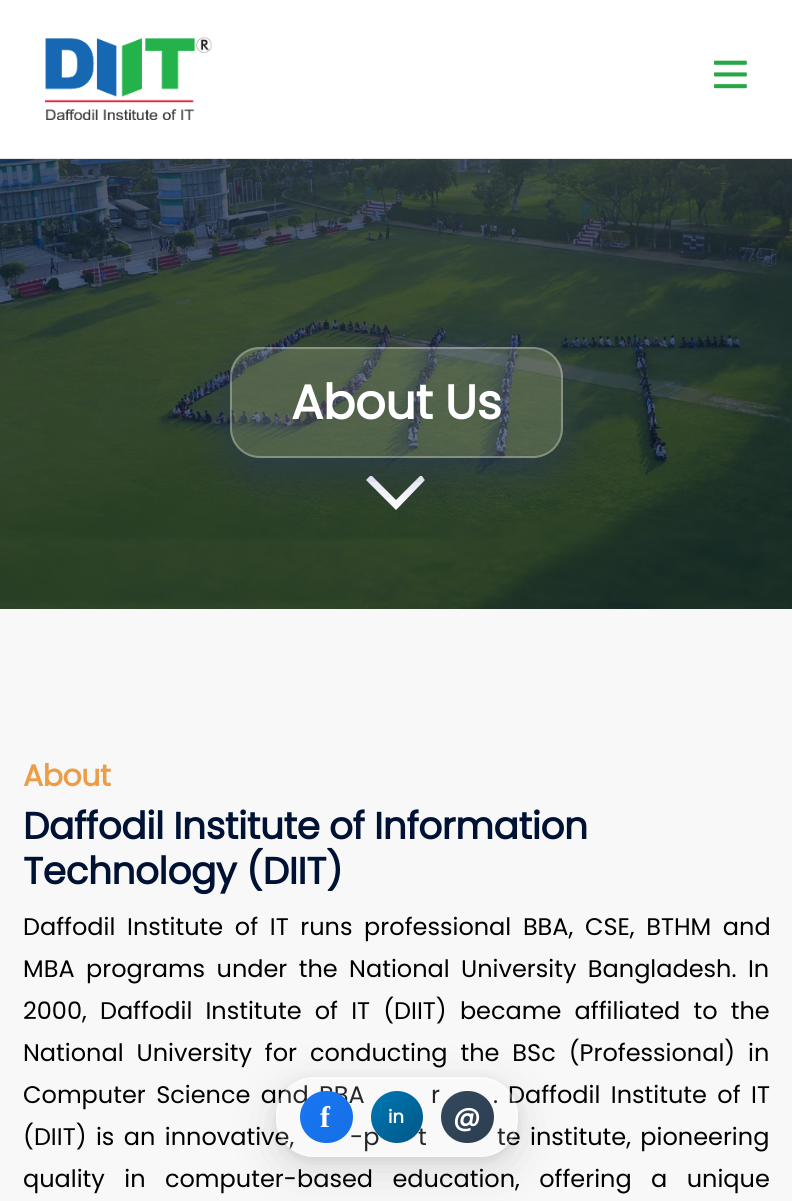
#include <cairo.h>
#include <math.h>
#include <stddef.h>

static cairo_t *c;
static void C(unsigned color){cairo_set_source_rgb(c, (color >> 16) / 255.0, (color >> 8 & 255) / 255.0, (color & 255) / 255.0);}
static void F(const char *family, double size, int italic, int bold){cairo_select_font_face(c, family, italic ? CAIRO_FONT_SLANT_ITALIC : CAIRO_FONT_SLANT_NORMAL,bold ? CAIRO_FONT_WEIGHT_BOLD : CAIRO_FONT_WEIGHT_NORMAL);cairo_set_font_size(c, size);}
static void T(double x, double y, const char *s){cairo_move_to(c, x, y);cairo_show_text(c, s);}
static void L(double x, double y, const char *s, double letter, double word){cairo_move_to(c, x, y);while (*s) {char ch[5] = {0};int n = 0;do ch[n++] = *s++; while ((*s & 0xC0) == 0x80);cairo_show_text(c, ch);cairo_rel_move_to(c, letter + word * (*ch == ' '), 0);}}
static void R(double x, double y, double w, double h){cairo_rectangle(c, x, y, w, h);cairo_fill(c);}
static void Q(double x, double y, double w, double h, double r){cairo_new_sub_path(c);cairo_arc(c, x + w - r, y + h - r, r, 0, M_PI / 2);cairo_arc(c, x + r, y + h - r, r, M_PI / 2, M_PI);cairo_arc(c, x + r, y + r, r, M_PI, 1.5 * M_PI);cairo_arc(c, x + w - r, y + r, r, 1.5 * M_PI, 2 * M_PI);cairo_close_path(c);}
static void S(double x, double y, double w, double h, double r, double blur, double alpha){cairo_push_group_with_content(c, CAIRO_CONTENT_ALPHA);cairo_set_operator(c, CAIRO_OPERATOR_SOURCE);for (int i = 15; i >= -15 && fmin(w, h) + blur * i / 3 > 0; i -= 2) {double e = blur * i / 6;cairo_set_source_rgba(c, 0, 0, 0, alpha * erfc((i - 1) / 8.5) / 2);Q(x - e, y - e, w + 2 * e, h + 2 * e, fmax(0, fmin(r + e + blur * .6, fmin(w, h) / 2 + e)));cairo_fill(c);}cairo_pattern_t *soft = cairo_pop_group(c);cairo_mask(c, soft);cairo_pattern_destroy(soft);}
static void I(const char *path, double x, double y, double w, double h){cairo_surface_t *image = cairo_image_surface_create_from_png(path);cairo_save(c);cairo_set_source_surface(c, image, x, y);cairo_rectangle(c, x, y, w, h);cairo_fill(c);cairo_restore(c);cairo_surface_destroy(image);}
int main(void) {
cairo_surface_t *surface = cairo_image_surface_create(CAIRO_FORMAT_RGB24, 792, 1201);
c = cairo_create(surface);
cairo_font_options_t *options = cairo_font_options_create();
cairo_font_options_set_hint_metrics(options, CAIRO_HINT_METRICS_OFF);
cairo_font_options_set_hint_style(options, CAIRO_HINT_STYLE_NONE);
cairo_set_font_options(c, options);
cairo_set_miter_limit(c, 4);
cairo_pattern_t *gradient;
C(0xffffff);
cairo_paint(c);
C(0xe4e4e4);
R(0,158,792,1);
I("1.png",45,37,167,83);
I("2.png",714,60,33,29);
I("3.png",0,159,792,450);
C(0xffffff);
cairo_new_path(c);
cairo_move_to(c,424,479);
cairo_curve_to(c,425,480,425,480,424,481);
cairo_line_to(c,397,509);
cairo_curve_to(c,396,510,395,510,395,509);
cairo_line_to(c,367,481);
cairo_curve_to(c,366,480,366,480,367,479);
cairo_line_to(c,370,476);
cairo_curve_to(c,370,476,371,476,372,476);
cairo_line_to(c,396,500);
cairo_line_to(c,420,476);
cairo_curve_to(c,420,476,421,476,422,476);
cairo_close_path(c);
cairo_fill(c);
cairo_save(c);
cairo_set_fill_rule(c,CAIRO_FILL_RULE_EVEN_ODD);
cairo_new_path(c);
cairo_move_to(c,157,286);
cairo_line_to(c,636,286);
cairo_line_to(c,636,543);
cairo_line_to(c,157,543);
cairo_close_path(c);
cairo_move_to(c,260,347);
cairo_line_to(c,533,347);
cairo_curve_to(c,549.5,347,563,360.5,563,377);
cairo_line_to(c,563,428);
cairo_curve_to(c,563,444.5,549.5,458,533,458);
cairo_line_to(c,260,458);
cairo_curve_to(c,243.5,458,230,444.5,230,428);
cairo_line_to(c,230,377);
cairo_curve_to(c,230,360.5,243.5,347,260,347);
cairo_close_path(c);
cairo_clip(c);
C(0x1f2687);
S(230,359,333,111,30,24,.37);
cairo_restore(c);
cairo_set_source_rgba(c,1,1,1,0.15);
Q(230,347,333,111,30);
cairo_fill(c);
Q(231,348,331,109,29);
cairo_set_source_rgba(c,1,1,1,0.3);
cairo_stroke(c);
F("Poppins",48,0,1);
C(0xffffff);
L(291,419,"About Us",-.45,0);
C(0xf8f8f8);
R(0,609,792,592);
F("Poppins",30,0,1);
C(0xeb9e47);
L(23,786,"About",-.45,0);
F("Poppins",37.5,0,1);
C(0x001234);
L(23,839,"Daffodil Institute of Information",-.45,0);
L(23,884,"Technology (DIIT)",-.45,0);
F("Poppins",24,0,0);
C(0x000000);
L(23,935,"Daffodil Institute of IT runs professional BBA, CSE, BTHM and",0,5.25);
L(23,977,"MBA programs under the National",0,5);
L(461,977,"University Bangladesh. In",0,5);
L(23,1019,"2000, Daffodil Institute of IT (DIIT) became affiliated to the",0,6.75);
L(23,1061,"National University for conducting the BSc (Professional) in",0,6.5);
L(23,1103,"Computer Science and BBA",0,4);
T(431,1103,"r");
T(493,1103,".");
L(508,1103,"Daffodil Institute of IT",0,4);
L(23,1145,"(DIIT) is an innovative,",0,3);
L(350,1145,"-p",0,3);
L(418,1145,"t",0,3);
L(497,1145,"te institute, pioneering",0,3);
L(23,1187,"quality in computer-based education, offering a unique",0,13);
cairo_save(c);
cairo_set_fill_rule(c,CAIRO_FILL_RULE_EVEN_ODD);
cairo_new_path(c);
cairo_move_to(c,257,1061);
cairo_line_to(c,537,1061);
cairo_line_to(c,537,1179);
cairo_line_to(c,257,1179);
cairo_close_path(c);
cairo_move_to(c,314,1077);
cairo_line_to(c,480,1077);
cairo_curve_to(c,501,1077,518,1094,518,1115);
cairo_line_to(c,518,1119);
cairo_curve_to(c,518,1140,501,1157,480,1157);
cairo_line_to(c,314,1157);
cairo_curve_to(c,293,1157,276,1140,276,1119);
cairo_line_to(c,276,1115);
cairo_curve_to(c,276,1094,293,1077,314,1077);
cairo_close_path(c);
cairo_clip(c);
C(0x000000);
S(276,1080,242,80,38,6,.08);
cairo_restore(c);
cairo_save(c);
cairo_set_fill_rule(c,CAIRO_FILL_RULE_EVEN_ODD);
cairo_new_path(c);
cairo_move_to(c,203,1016);
cairo_line_to(c,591,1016);
cairo_line_to(c,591,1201);
cairo_line_to(c,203,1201);
cairo_close_path(c);
cairo_move_to(c,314,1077);
cairo_line_to(c,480,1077);
cairo_curve_to(c,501,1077,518,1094,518,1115);
cairo_line_to(c,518,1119);
cairo_curve_to(c,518,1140,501,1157,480,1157);
cairo_line_to(c,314,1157);
cairo_curve_to(c,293,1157,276,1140,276,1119);
cairo_line_to(c,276,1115);
cairo_curve_to(c,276,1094,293,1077,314,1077);
cairo_close_path(c);
cairo_clip(c);
C(0x000000);
S(276,1089,242,80,38,24,.12);
cairo_restore(c);
cairo_set_source_rgba(c,1,1,1,0.15);
Q(276,1077,242,80,38);
cairo_fill(c);
cairo_set_source_rgba(c,1,1,1,0.2);
cairo_new_path(c);
cairo_move_to(c,313,1080);
cairo_line_to(c,479,1080);
cairo_curve_to(c,499,1080,515,1096,515,1116);
cairo_line_to(c,515,1120);
cairo_curve_to(c,515,1129,512,1138,506,1144);
cairo_curve_to(c,512,1137,516,1129,516,1119);
cairo_line_to(c,516,1115);
cairo_curve_to(c,516,1095,500,1079,480,1079);
cairo_line_to(c,314,1079);
cairo_curve_to(c,304,1079,296,1083,289,1089);
cairo_curve_to(c,295,1083,304,1080,313,1080);
cairo_close_path(c);
cairo_fill(c);
Q(277,1078,240,78,37);
cairo_set_source_rgba(c,1,1,1,0.25);
cairo_stroke(c);
gradient = cairo_pattern_create_linear(299,1091,352,1143);
cairo_pattern_add_color_stop_rgba(gradient,0,0.094,0.467,0.949,1);
cairo_pattern_add_color_stop_rgba(gradient,1,0.086,0.435,0.898,1);
cairo_set_source(c,gradient);
cairo_pattern_destroy(gradient);
Q(300,1091,53,52,26);
cairo_fill(c);
F("Liberation Serif",30,0,1);
C(0xffffff);
T(320,1127,"f");
gradient = cairo_pattern_create_linear(370,1091,422,1143);
cairo_pattern_add_color_stop_rgba(gradient,0,0,0.467,0.71,1);
cairo_pattern_add_color_stop_rgba(gradient,1,0,0.345,0.522,1);
cairo_set_source(c,gradient);
cairo_pattern_destroy(gradient);
cairo_new_path(c);
cairo_arc(c,397,1117,26,0,2 * M_PI);
cairo_fill(c);
F("Poppins",18,0,1);
C(0xffffff);
T(388,1123,"in");
gradient = cairo_pattern_create_linear(440,1091,493,1143);
cairo_pattern_add_color_stop_rgba(gradient,0,0.204,0.286,0.369,1);
cairo_pattern_add_color_stop_rgba(gradient,1,0.173,0.243,0.314,1);
cairo_set_source(c,gradient);
cairo_pattern_destroy(gradient);
Q(441,1091,53,52,26);
cairo_fill(c);
F("Poppins",27,0,1);
C(0xffffff);
T(453,1126,"@");
cairo_surface_write_to_png(surface, "o.png");
cairo_font_options_destroy(options);
cairo_destroy(c);
cairo_surface_destroy(surface);
return 0;
}
